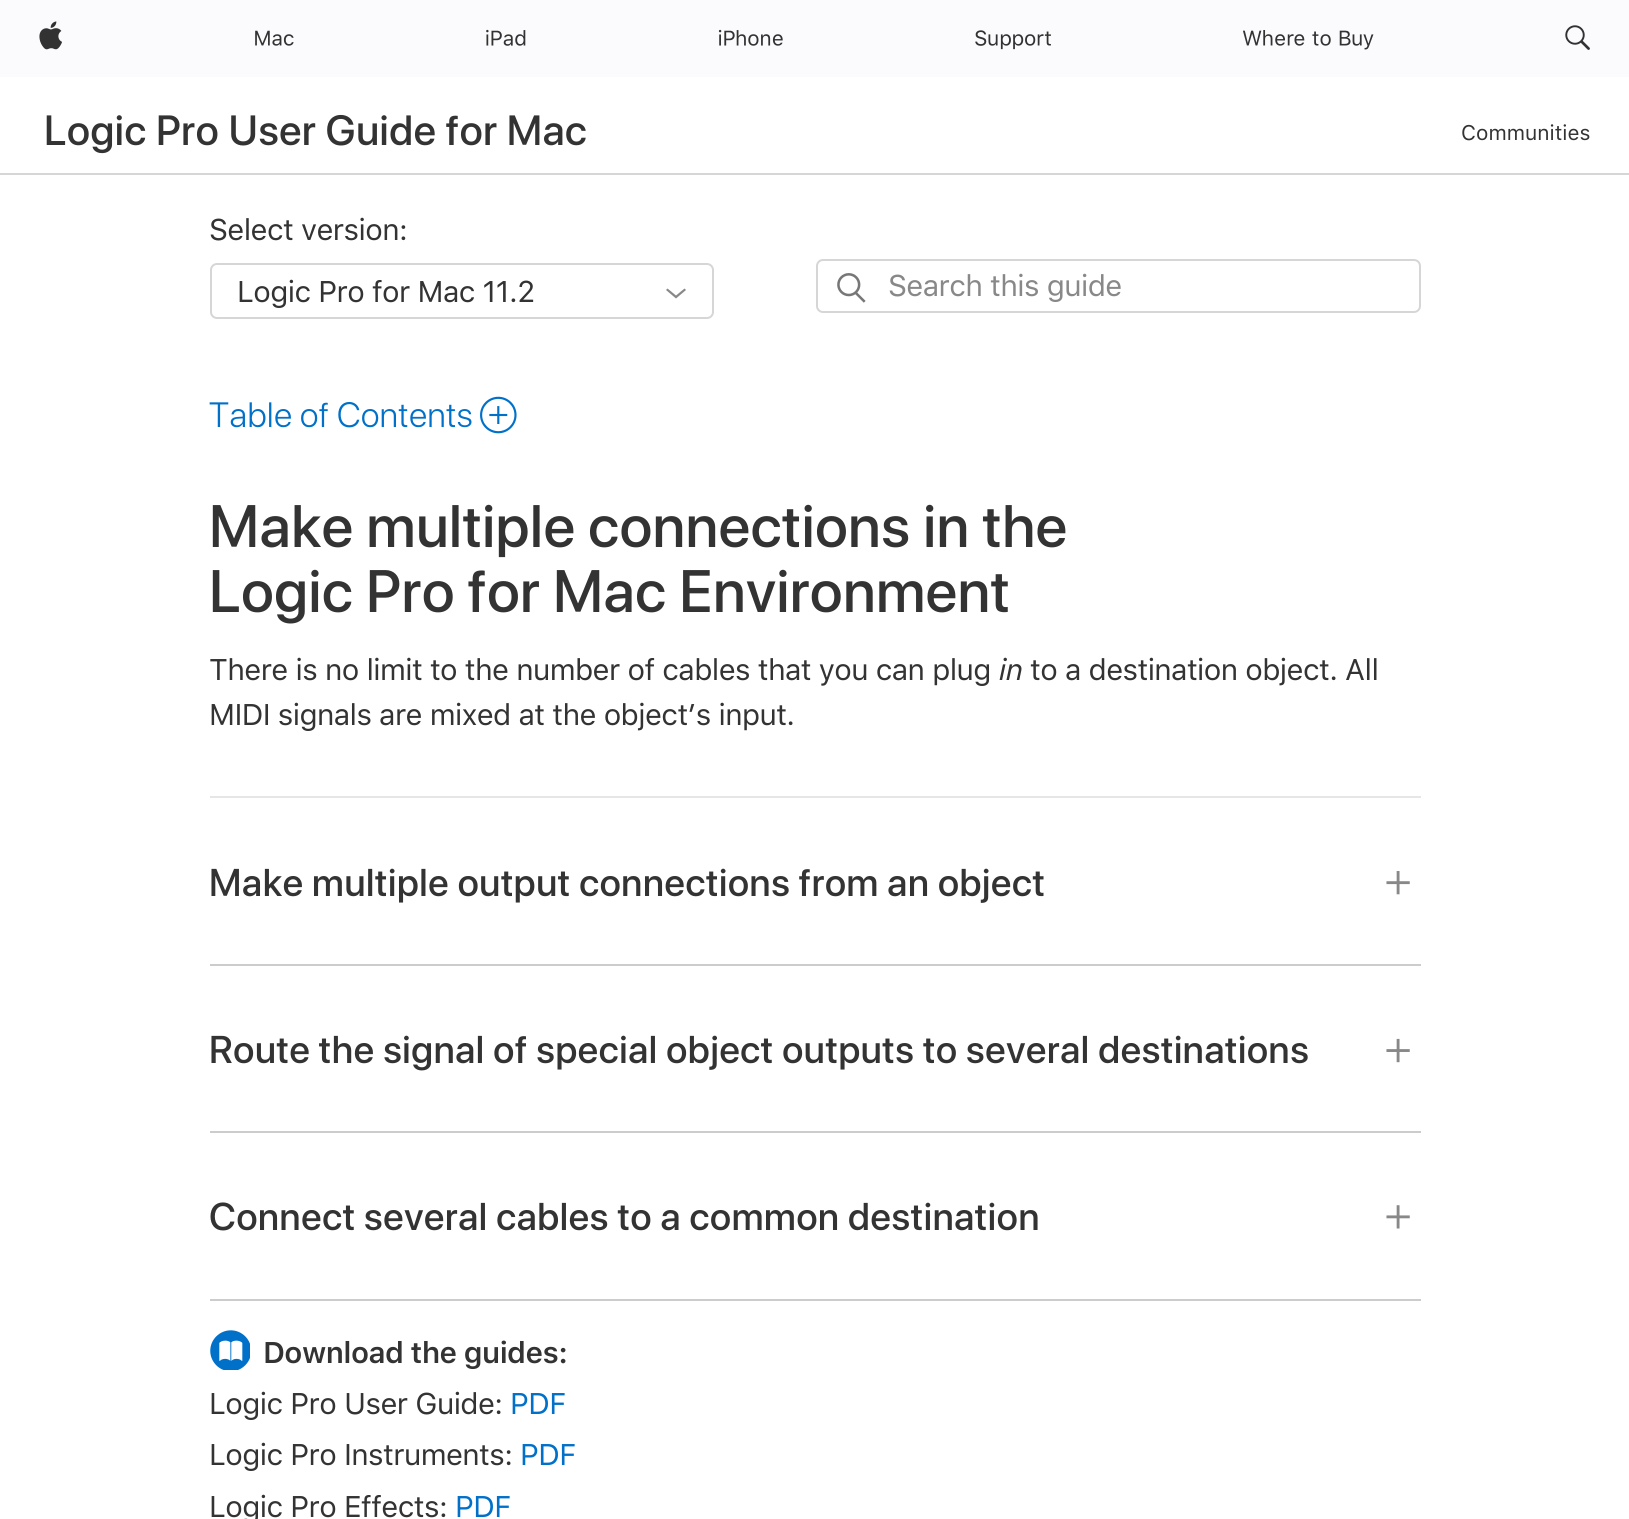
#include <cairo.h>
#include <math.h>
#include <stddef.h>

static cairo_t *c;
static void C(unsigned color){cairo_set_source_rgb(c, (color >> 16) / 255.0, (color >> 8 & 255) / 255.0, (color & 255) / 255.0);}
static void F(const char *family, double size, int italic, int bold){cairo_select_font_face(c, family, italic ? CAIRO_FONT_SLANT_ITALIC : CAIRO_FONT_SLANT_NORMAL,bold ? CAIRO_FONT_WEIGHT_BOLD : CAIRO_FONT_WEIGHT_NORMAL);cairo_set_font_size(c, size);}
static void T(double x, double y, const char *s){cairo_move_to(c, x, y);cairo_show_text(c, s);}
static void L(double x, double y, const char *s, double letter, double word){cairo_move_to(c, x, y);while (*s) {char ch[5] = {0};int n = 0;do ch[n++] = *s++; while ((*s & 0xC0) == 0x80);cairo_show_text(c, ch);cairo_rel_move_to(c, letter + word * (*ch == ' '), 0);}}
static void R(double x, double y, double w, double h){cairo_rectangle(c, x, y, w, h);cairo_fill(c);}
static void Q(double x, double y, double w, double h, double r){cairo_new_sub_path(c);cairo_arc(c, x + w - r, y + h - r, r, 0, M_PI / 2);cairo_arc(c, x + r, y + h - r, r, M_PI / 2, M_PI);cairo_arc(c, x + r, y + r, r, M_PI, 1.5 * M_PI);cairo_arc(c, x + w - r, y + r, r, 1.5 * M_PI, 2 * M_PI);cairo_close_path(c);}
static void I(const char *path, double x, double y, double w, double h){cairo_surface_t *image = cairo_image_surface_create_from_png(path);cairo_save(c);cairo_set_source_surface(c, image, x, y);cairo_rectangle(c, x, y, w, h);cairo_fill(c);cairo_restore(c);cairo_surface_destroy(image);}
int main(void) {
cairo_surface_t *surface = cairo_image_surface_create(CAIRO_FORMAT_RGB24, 1629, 1519);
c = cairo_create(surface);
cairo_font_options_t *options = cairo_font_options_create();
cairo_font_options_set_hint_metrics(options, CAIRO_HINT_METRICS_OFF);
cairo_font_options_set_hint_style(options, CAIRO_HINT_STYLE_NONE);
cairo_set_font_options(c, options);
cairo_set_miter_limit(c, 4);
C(0xffffff);
cairo_paint(c);
C(0xfbfbfd);
R(0,0,1629,77);
I("1.png",39,21,23,29);
I("2.png",255,30,39,16);
I("3.png",486,29,40,17);
I("4.png",718,29,65,17);
I("5.png",975,30,76,20);
I("6.png",1243,30,131,20);
I("7.png",1565,25,25,25);
F("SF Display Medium",42,0,0);
C(0x333333);
L(44,145,"Logic Pro User Guide for Mac",.6,0);
F("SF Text",21,0,0);
T(1461,140,"Communities");
C(0xd6d6d6);
R(0,173,1629,2);
F("SF Text",29.75,0,0);
C(0x333333);
L(209,240,"Select version:",-.62,0);
Q(211,264,502,54,6);
C(0xd6d6d6);
cairo_stroke(c);
C(0x333333);
L(237,302,"Logic Pro for Mac 11.2",-.62,0);
C(0x888888);
cairo_new_path(c);
cairo_move_to(c,667.5,288.5);
cairo_line_to(c,666,290);
cairo_line_to(c,676,298.5);
cairo_line_to(c,686,290);
cairo_line_to(c,684.5,288.5);
cairo_line_to(c,676,295.5);
cairo_close_path(c);
cairo_fill(c);
Q(817,260,603,52,6);
C(0xd6d6d6);
cairo_stroke(c);
I("8.png",837,273,29,30);
C(0x888888);
L(888,296,"Search this guide",-.62,0);
F("SF Display Light",35,0,0);
C(0x0070c9);
L(209,427,"Table of Contents",.6,0);
I("9.png",480,396,37,38);
F("SF Display Medium",59.5,0,0);
C(0x333333);
L(209,547,"Make multiple connections in the",.6,0);
L(209,612,"Logic Pro for Mac Environment",.6,0);
F("SF Text",29.75,0,0);
L(209,680,"There is no limit to the number of cables that you can plug",-.62,0);
F("SF Text",29.75,1,0);
L(998,680,"in",-.62,0);
F("SF Text",29.75,0,0);
L(1030,680,"to a destination object. All",-.62,0);
L(209,725,"MIDI signals are mixed at the object’s input.",-.62,0);
C(0xe6e6e6);
R(210,796,1211,2);
F("SF Display Medium",38.5,0,0);
C(0x333333);
L(209,896,"Make multiple output connections from an object",.62,0);
I("10.png",1386,871,24,24);
C(0xcccccc);
R(210,964,1211,2);
C(0x333333);
L(209,1063,"Route the signal of special object outputs to several destinations",.62,0);
I("11.png",1386,1038,24,25);
C(0xcccccc);
R(210,1131,1211,2);
C(0x333333);
L(209,1230,"Connect several cables to a common destination",.62,0);
I("12.png",1386,1205,24,24);
C(0xcccccc);
R(210,1299,1211,2);
I("13.png",210,1330,40,40);
F("SF Text SemiBold",29.75,0,0);
C(0x333333);
L(263,1363,"Download the guides:",-.62,0);
F("SF Text",29.75,0,0);
L(209,1414,"Logic Pro User Guide:",-.62,0);
C(0x0070c9);
L(510,1414,"PDF",-.62,0);
C(0x333333);
L(209,1465,"Logic Pro Instruments:",-.62,0);
C(0x0070c9);
L(520,1465,"PDF",-.62,0);
C(0x333333);
L(209,1517,"Logic Pro Effects:",-.62,0);
C(0x0070c9);
L(455,1517,"PDF",-.62,0);
cairo_surface_write_to_png(surface, "o.png");
cairo_font_options_destroy(options);
cairo_destroy(c);
cairo_surface_destroy(surface);
return 0;
}
